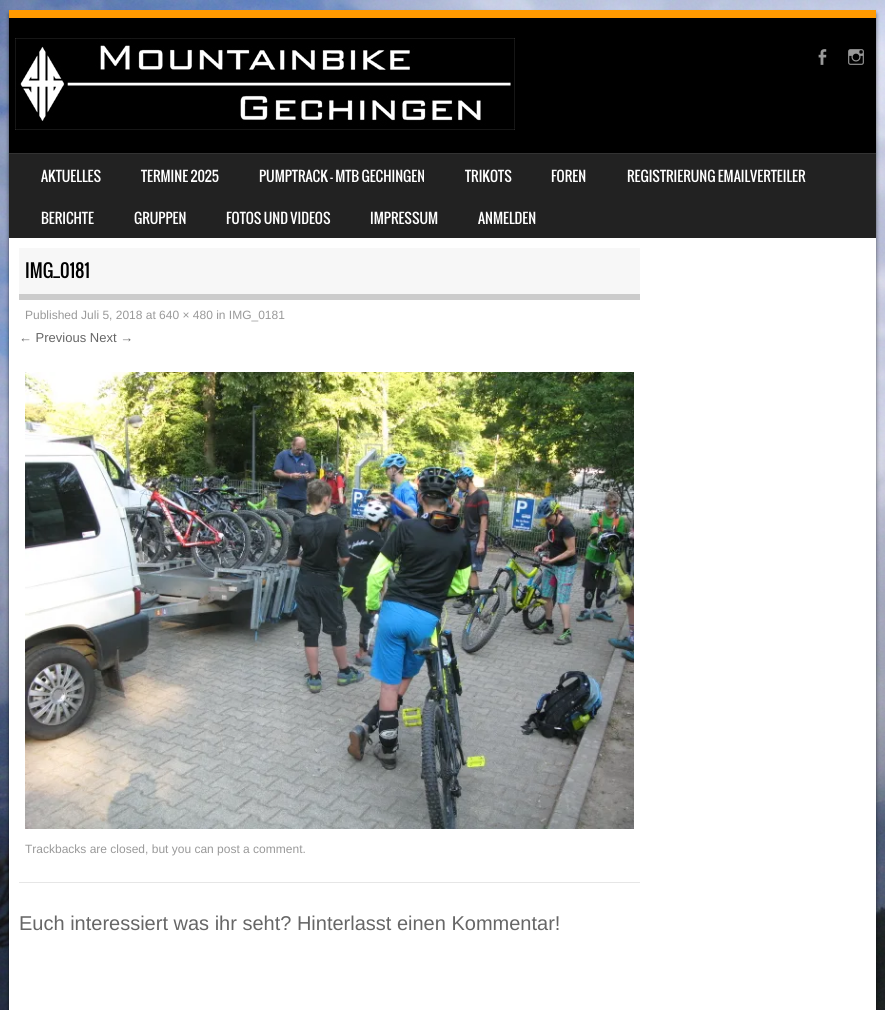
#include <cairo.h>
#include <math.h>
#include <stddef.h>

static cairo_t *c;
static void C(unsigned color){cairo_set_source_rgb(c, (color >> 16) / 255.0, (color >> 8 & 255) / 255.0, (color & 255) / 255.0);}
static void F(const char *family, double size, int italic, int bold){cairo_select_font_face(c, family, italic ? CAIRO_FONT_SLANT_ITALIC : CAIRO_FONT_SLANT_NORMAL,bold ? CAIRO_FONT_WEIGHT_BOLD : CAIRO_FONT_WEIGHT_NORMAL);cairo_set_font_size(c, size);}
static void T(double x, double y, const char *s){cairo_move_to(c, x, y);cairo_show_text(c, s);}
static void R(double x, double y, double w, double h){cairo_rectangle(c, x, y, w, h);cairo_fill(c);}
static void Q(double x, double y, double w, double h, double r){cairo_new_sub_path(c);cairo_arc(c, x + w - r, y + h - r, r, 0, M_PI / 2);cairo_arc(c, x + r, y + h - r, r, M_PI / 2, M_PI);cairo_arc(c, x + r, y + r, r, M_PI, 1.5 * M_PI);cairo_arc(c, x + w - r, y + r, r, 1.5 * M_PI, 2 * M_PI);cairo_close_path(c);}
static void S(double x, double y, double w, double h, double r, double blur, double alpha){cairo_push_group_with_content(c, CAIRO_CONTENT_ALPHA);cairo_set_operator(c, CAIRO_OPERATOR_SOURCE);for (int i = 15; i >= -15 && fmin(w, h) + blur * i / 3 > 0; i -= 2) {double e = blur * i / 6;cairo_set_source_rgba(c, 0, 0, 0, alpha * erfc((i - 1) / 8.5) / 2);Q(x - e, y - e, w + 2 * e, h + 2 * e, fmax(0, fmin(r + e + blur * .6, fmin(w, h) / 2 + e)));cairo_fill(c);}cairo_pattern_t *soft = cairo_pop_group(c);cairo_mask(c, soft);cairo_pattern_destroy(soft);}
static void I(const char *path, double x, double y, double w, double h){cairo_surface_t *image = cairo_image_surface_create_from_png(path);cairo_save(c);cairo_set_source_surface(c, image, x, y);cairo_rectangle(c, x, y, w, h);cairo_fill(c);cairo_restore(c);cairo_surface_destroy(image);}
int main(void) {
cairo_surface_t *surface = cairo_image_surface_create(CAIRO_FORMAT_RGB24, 885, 1010);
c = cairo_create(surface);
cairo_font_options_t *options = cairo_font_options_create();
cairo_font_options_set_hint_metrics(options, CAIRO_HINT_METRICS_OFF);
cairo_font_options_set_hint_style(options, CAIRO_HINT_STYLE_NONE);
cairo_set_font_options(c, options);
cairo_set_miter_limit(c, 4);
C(0xffffff);
cairo_paint(c);
I("1.png",0,0,885,1010);
C(0x000000);
S(9,14,867,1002,0,2,.6);
C(0x000000);
R(9,18,867,135);
C(0xff9900);
R(9,10,867,8);
I("2.png",15,38,500,92);
I("3.png",818,49,9,16);
I("4.png",848,49,16,16);
C(0x222222);
R(9,154,867,84);
C(0x333333);
R(9,153,867,1);
F("Oswald",14,0,0);
C(0xffffff);
T(41,182,"AKTUELLES");
T(141,182,"TERMINE 2025");
T(259,182,"PUMPTRACK – MTB GECHINGEN");
T(465,182,"TRIKOTS");
T(551,182,"FOREN");
T(627,182,"REGISTRIERUNG EMAILVERTEILER");
T(41,224,"BERICHTE");
T(134,224,"GRUPPEN");
T(226,224,"FOTOS UND VIDEOS");
T(370,224,"IMPRESSUM");
T(478,224,"ANMELDEN");
R(9,238,867,772);
C(0xe6e6e6);
R(19,882,621,1);
C(0xf7f7f7);
R(19,248,621,46);
C(0xcccccc);
R(19,294,621,6);
F("Oswald",18,0,0);
C(0x000000);
T(25,278,"IMG_0181");
F("Liberation Sans",12,0,0);
C(0x999999);
T(25,319,"Published Juli 5, 2018 at 640 × 480 in IMG_0181");
F("Liberation Sans",13,0,0);
C(0x666666);
T(19,342,"← Previous Next →");
I("5.png",25,372,609,457);
F("Liberation Sans",12,0,0);
C(0x999999);
T(25,853,"Trackbacks are closed, but you can post a comment.");
F("Liberation Sans",20,0,0);
C(0x666666);
T(19,930,"Euch interessiert was ihr seht? Hinterlasst einen Kommentar!");
cairo_surface_write_to_png(surface, "o.png");
cairo_font_options_destroy(options);
cairo_destroy(c);
cairo_surface_destroy(surface);
return 0;
}
